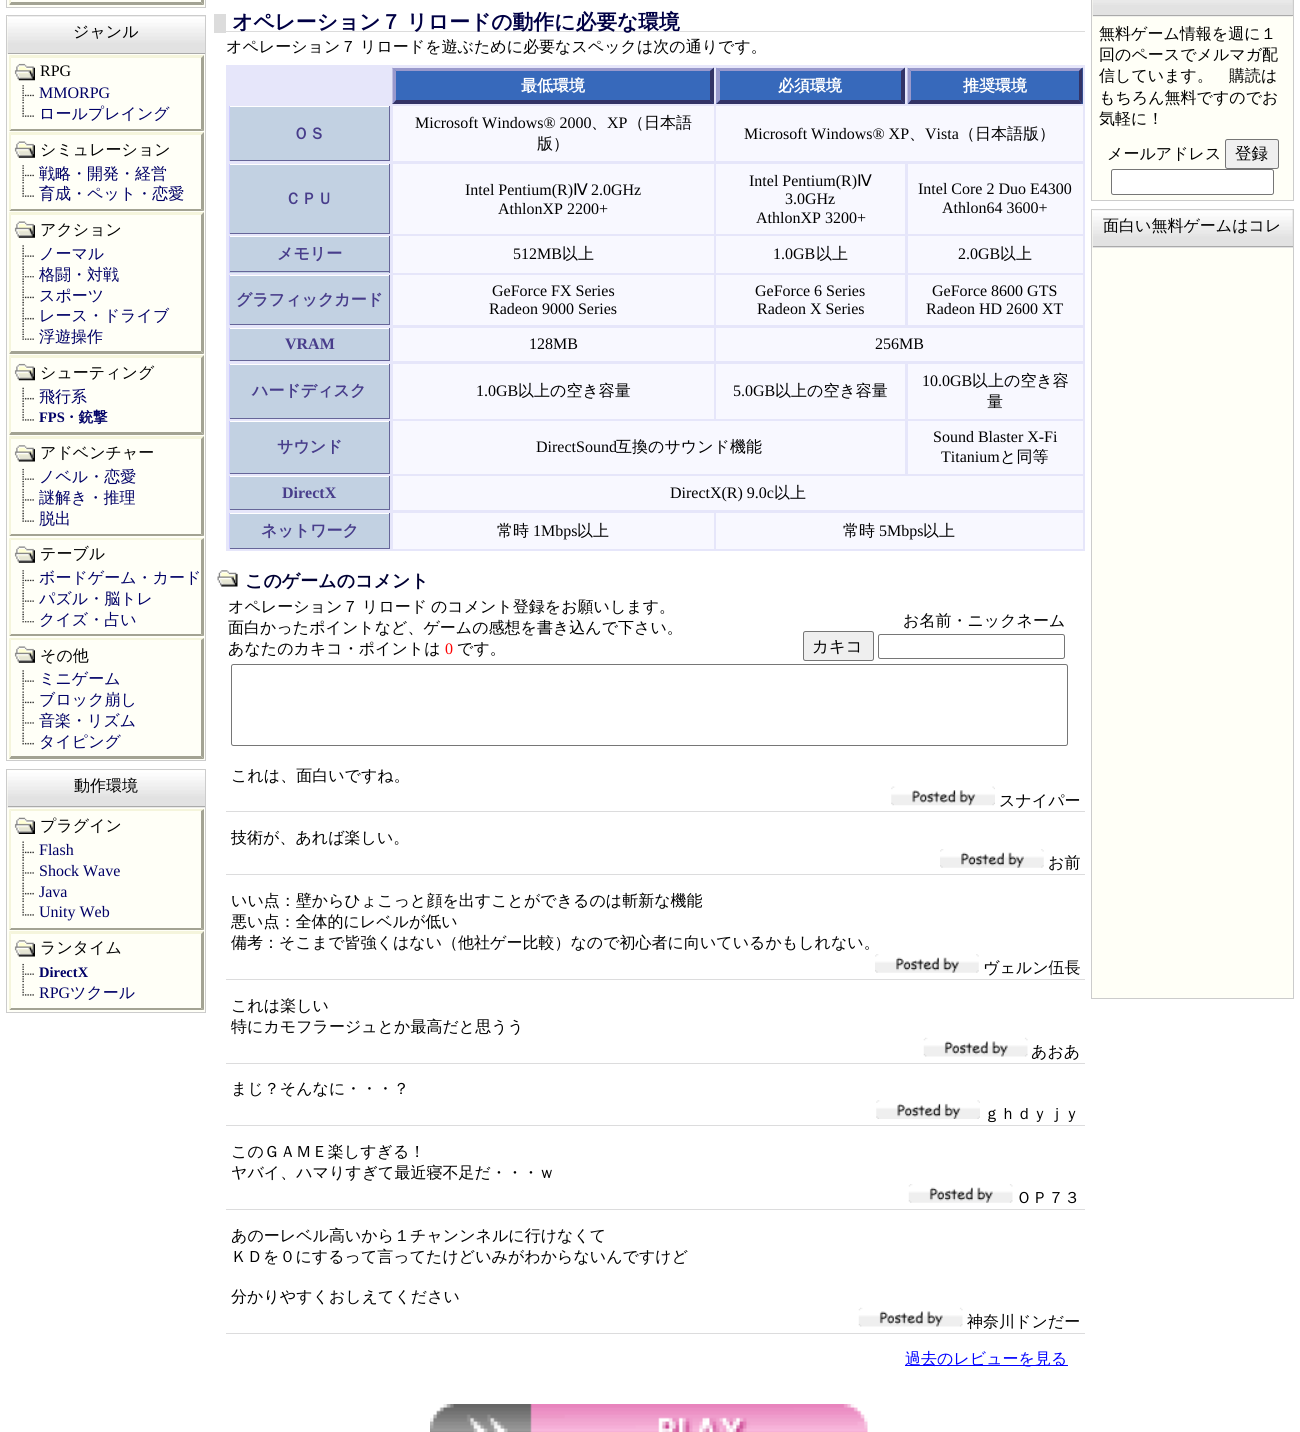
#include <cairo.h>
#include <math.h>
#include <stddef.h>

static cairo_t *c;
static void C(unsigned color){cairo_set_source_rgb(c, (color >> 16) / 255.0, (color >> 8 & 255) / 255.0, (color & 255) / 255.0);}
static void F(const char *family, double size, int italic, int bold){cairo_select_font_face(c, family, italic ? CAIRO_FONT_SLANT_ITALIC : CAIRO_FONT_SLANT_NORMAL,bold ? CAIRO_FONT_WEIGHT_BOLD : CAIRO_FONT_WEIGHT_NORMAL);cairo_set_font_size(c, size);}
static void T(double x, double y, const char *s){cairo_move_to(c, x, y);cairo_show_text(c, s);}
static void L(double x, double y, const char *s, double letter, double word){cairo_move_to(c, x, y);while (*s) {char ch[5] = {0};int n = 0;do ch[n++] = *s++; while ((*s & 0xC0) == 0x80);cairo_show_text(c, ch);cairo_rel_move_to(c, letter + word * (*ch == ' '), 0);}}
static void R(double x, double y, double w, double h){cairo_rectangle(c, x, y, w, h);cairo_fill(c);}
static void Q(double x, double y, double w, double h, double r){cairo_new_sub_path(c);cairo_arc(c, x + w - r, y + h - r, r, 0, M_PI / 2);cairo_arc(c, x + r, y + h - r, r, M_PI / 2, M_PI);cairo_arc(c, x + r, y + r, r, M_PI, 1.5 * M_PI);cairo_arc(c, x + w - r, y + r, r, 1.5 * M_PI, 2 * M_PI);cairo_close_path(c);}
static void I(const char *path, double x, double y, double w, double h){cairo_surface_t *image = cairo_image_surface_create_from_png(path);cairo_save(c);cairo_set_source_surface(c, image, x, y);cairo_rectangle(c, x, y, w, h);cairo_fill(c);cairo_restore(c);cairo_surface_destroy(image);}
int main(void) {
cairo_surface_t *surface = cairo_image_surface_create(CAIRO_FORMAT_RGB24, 1300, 1432);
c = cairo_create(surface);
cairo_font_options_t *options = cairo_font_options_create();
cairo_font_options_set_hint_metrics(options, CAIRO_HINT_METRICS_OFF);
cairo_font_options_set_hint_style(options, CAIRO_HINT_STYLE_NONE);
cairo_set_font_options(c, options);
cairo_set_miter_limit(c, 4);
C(0xffffff);
cairo_paint(c);
C(0xdcdcdc);
R(226,31,859,1);
R(214,14,12,19);
F("WenQuanYi Zen Hei",20.8,0,1);
C(0x000044);
L(232,29,"オペレーション７ リロードの動作に必要な環境",0,-1);
F("WenQuanYi Zen Hei Medium",16,0,0);
C(0x000000);
L(226,52,"オペレーション７ リロードを遊ぶために必要なスペックは次の通りです。",0,-1);
C(0xe6e6fa);
R(226,65,859,486);
C(0x3769bb);
R(393,68,321,36);
C(0x9999cc);
cairo_new_path(c);
cairo_move_to(c,392,68);
cairo_line_to(c,714,68);
cairo_line_to(c,710,71);
cairo_line_to(c,396,71);
cairo_close_path(c);
cairo_fill(c);
C(0x333366);
cairo_new_path(c);
cairo_move_to(c,714,67.5);
cairo_line_to(c,714,104);
cairo_line_to(c,710,100);
cairo_line_to(c,710,71);
cairo_close_path(c);
cairo_fill(c);
cairo_new_path(c);
cairo_move_to(c,714,104);
cairo_line_to(c,392,104);
cairo_line_to(c,396,100);
cairo_line_to(c,710,100);
cairo_close_path(c);
cairo_fill(c);
C(0x9999cc);
cairo_new_path(c);
cairo_move_to(c,392.5,104);
cairo_line_to(c,392.5,67.5);
cairo_line_to(c,396,71);
cairo_line_to(c,396,100);
cairo_close_path(c);
cairo_fill(c);
F("WenQuanYi Zen Hei",16,0,1);
C(0xffffff);
T(521,91,"最低環境");
C(0x3769bb);
R(716,68,189,36);
C(0x9999cc);
cairo_new_path(c);
cairo_move_to(c,716,68);
cairo_line_to(c,905,68);
cairo_line_to(c,901,71);
cairo_line_to(c,720,71);
cairo_close_path(c);
cairo_fill(c);
C(0x333366);
cairo_new_path(c);
cairo_move_to(c,905,67.5);
cairo_line_to(c,905,104);
cairo_line_to(c,901,100);
cairo_line_to(c,901,71);
cairo_close_path(c);
cairo_fill(c);
cairo_new_path(c);
cairo_move_to(c,905,104);
cairo_line_to(c,716,104);
cairo_line_to(c,720,100);
cairo_line_to(c,901,100);
cairo_close_path(c);
cairo_fill(c);
C(0x9999cc);
cairo_new_path(c);
cairo_move_to(c,716,104);
cairo_line_to(c,716,67.5);
cairo_line_to(c,720,71);
cairo_line_to(c,720,100);
cairo_close_path(c);
cairo_fill(c);
C(0xffffff);
T(778,91,"必須環境");
C(0x3769bb);
R(908,68,175,36);
C(0x9999cc);
cairo_new_path(c);
cairo_move_to(c,908,68);
cairo_line_to(c,1082,68);
cairo_line_to(c,1079,71);
cairo_line_to(c,911,71);
cairo_close_path(c);
cairo_fill(c);
C(0x333366);
cairo_new_path(c);
cairo_move_to(c,1082.5,67.5);
cairo_line_to(c,1082.5,104);
cairo_line_to(c,1079,100);
cairo_line_to(c,1079,71);
cairo_close_path(c);
cairo_fill(c);
cairo_new_path(c);
cairo_move_to(c,1082,104);
cairo_line_to(c,908,104);
cairo_line_to(c,911,100);
cairo_line_to(c,1079,100);
cairo_close_path(c);
cairo_fill(c);
C(0x9999cc);
cairo_new_path(c);
cairo_move_to(c,907.5,104);
cairo_line_to(c,907.5,67.5);
cairo_line_to(c,911,71);
cairo_line_to(c,911,100);
cairo_close_path(c);
cairo_fill(c);
C(0xffffff);
T(963,91,"推奨環境");
C(0xc2d1e2);
R(230,107,159,53);
C(0xffffff);
R(229,106,161,1);
C(0x666699);
R(389,106,1,55);
R(229,160,161,1);
C(0xccccff);
R(229,106,1,55);
C(0x483d8b);
T(293,139,"ＯＳ");
C(0xf8f8ff);
R(393,106,321,55);
F("Liberation Serif",16,0,0);
C(0x000000);
T(415,128,"Microsoft Windows® 2000");
F("WenQuanYi Zen Hei Medium",16,0,0);
T(591,128,"、");
F("Liberation Serif",16,0,0);
T(607,128,"XP");
F("WenQuanYi Zen Hei Medium",16,0,0);
T(628,128,"（日本語");
T(537,149,"版）");
C(0xf8f8ff);
R(716,106,367,55);
F("Liberation Serif",16,0,0);
C(0x000000);
T(744,139,"Microsoft Windows® XP");
F("WenQuanYi Zen Hei Medium",16,0,0);
T(909,139,"、");
F("Liberation Serif",16,0,0);
T(925,139,"Vista");
F("WenQuanYi Zen Hei Medium",16,0,0);
T(959,139,"（日本語版）");
C(0xc2d1e2);
R(230,165,159,68);
C(0xffffff);
R(229,164,161,1);
C(0x666699);
R(389,164,1,70);
R(229,233,161,1);
C(0xccccff);
R(229,164,1,70);
F("WenQuanYi Zen Hei",16,0,1);
C(0x483d8b);
T(285,204,"ＣＰＵ");
C(0xf8f8ff);
R(393,164,321,70);
F("Liberation Serif",16,0,0);
C(0x000000);
T(465,195,"Intel Pentium(R)");
F("DejaVu Sans",16,0,0);
T(573,195,"Ⅳ");
F("Liberation Serif",16,0,0);
T(591,195,"2.0GHz");
T(498,214,"AthlonXP 2200+");
C(0xf8f8ff);
R(716,164,189,70);
C(0x000000);
T(749,186,"Intel Pentium(R)");
F("DejaVu Sans",16,0,0);
T(857,186,"Ⅳ");
F("Liberation Serif",16,0,0);
T(785,204,"3.0GHz");
T(756,223,"AthlonXP 3200+");
C(0xf8f8ff);
R(908,164,175,70);
C(0x000000);
T(918,194,"Intel Core 2 Duo E4300");
T(942,213,"Athlon64 3600+");
C(0xc2d1e2);
R(230,237,159,36);
C(0xffffff);
R(229,236,161,1);
C(0x666699);
R(389,236,1,37);
R(229,271,161,1);
C(0xccccff);
R(229,236,1,37);
F("WenQuanYi Zen Hei",16,0,1);
C(0x483d8b);
T(277,259,"メモリー");
C(0xf8f8ff);
R(393,236,321,37);
F("Liberation Serif",16,0,0);
C(0x000000);
T(513,259,"512MB");
F("WenQuanYi Zen Hei Medium",16,0,0);
T(562,259,"以上");
C(0xf8f8ff);
R(716,236,189,37);
F("Liberation Serif",16,0,0);
C(0x000000);
T(773,259,"1.0GB");
F("WenQuanYi Zen Hei Medium",16,0,0);
T(816,259,"以上");
C(0xf8f8ff);
R(908,236,175,37);
F("Liberation Serif",16,0,0);
C(0x000000);
T(958,259,"2.0GB");
F("WenQuanYi Zen Hei Medium",16,0,0);
T(1000,259,"以上");
C(0xc2d1e2);
R(230,276,159,48);
C(0xffffff);
R(229,275,161,1);
C(0x666699);
R(389,275,1,50);
R(229,324,161,1);
C(0xccccff);
R(229,275,1,50);
F("WenQuanYi Zen Hei",16,0,1);
C(0x483d8b);
T(236,305,"グラフィックカード");
C(0xf8f8ff);
R(393,275,321,50);
F("Liberation Serif",16,0,0);
C(0x000000);
T(492,296,"GeForce FX Series");
T(489,314,"Radeon 9000 Series");
C(0xf8f8ff);
R(716,275,189,50);
C(0x000000);
T(755,296,"GeForce 6 Series");
T(757,314,"Radeon X Series");
C(0xf8f8ff);
R(908,275,175,50);
C(0x000000);
T(932,296,"GeForce 8600 GTS");
T(926,314,"Radeon HD 2600 XT");
C(0xc2d1e2);
R(230,329,159,31);
C(0xffffff);
R(229,328,161,1);
C(0x666699);
R(389,328,1,33);
R(229,360,161,1);
C(0xccccff);
R(229,328,1,33);
F("Liberation Serif",16,0,1);
C(0x483d8b);
T(285,349,"VRAM");
C(0xf8f8ff);
R(393,328,321,33);
F("Liberation Serif",16,0,0);
C(0x000000);
T(529,349,"128MB");
C(0xf8f8ff);
R(716,328,367,33);
C(0x000000);
T(875,349,"256MB");
C(0xc2d1e2);
R(230,365,159,53);
C(0xffffff);
R(229,364,161,1);
C(0x666699);
R(389,364,1,55);
R(229,418,161,1);
C(0xccccff);
R(229,364,1,55);
F("WenQuanYi Zen Hei",16,0,1);
C(0x483d8b);
T(252,396,"ハードディスク");
C(0xf8f8ff);
R(393,364,321,55);
F("Liberation Serif",16,0,0);
C(0x000000);
T(476,396,"1.0GB");
F("WenQuanYi Zen Hei Medium",16,0,0);
T(518,396,"以上の空き容量");
C(0xf8f8ff);
R(716,364,189,55);
F("Liberation Serif",16,0,0);
C(0x000000);
T(733,396,"5.0GB");
F("WenQuanYi Zen Hei Medium",16,0,0);
T(775,396,"以上の空き容量");
C(0xf8f8ff);
R(908,364,175,55);
F("Liberation Serif",16,0,0);
C(0x000000);
T(922,386,"10.0GB");
F("WenQuanYi Zen Hei Medium",16,0,0);
T(972,386,"以上の空き容");
T(987,407,"量");
C(0xc2d1e2);
R(230,422,159,51);
C(0xffffff);
R(229,421,161,1);
C(0x666699);
R(389,421,1,53);
R(229,473,161,1);
C(0xccccff);
R(229,421,1,53);
F("WenQuanYi Zen Hei",16,0,1);
C(0x483d8b);
T(277,452,"サウンド");
C(0xf8f8ff);
R(393,421,512,53);
F("Liberation Serif",16,0,0);
C(0x000000);
T(536,452,"DirectSound");
F("WenQuanYi Zen Hei Medium",16,0,0);
T(616,452,"互換のサウンド機能");
C(0xf8f8ff);
R(908,421,175,53);
F("Liberation Serif",16,0,0);
C(0x000000);
T(933,442,"Sound Blaster X-Fi");
T(941,462,"Titanium");
F("WenQuanYi Zen Hei Medium",16,0,0);
T(1000,462,"と同等");
C(0xc2d1e2);
R(230,477,159,32);
C(0xffffff);
R(229,476,161,1);
C(0x666699);
R(389,476,1,34);
R(229,509,161,1);
C(0xccccff);
R(229,476,1,34);
F("Liberation Serif",16,0,1);
C(0x483d8b);
T(282,498,"DirectX");
C(0xf8f8ff);
R(393,476,690,34);
F("Liberation Serif",16,0,0);
C(0x000000);
T(670,498,"DirectX(R) 9.0c");
F("WenQuanYi Zen Hei Medium",16,0,0);
T(774,498,"以上");
C(0xc2d1e2);
R(230,514,159,34);
C(0xffffff);
R(229,513,161,1);
C(0x666699);
R(389,513,1,36);
R(229,548,161,1);
C(0xccccff);
R(229,513,1,36);
F("WenQuanYi Zen Hei",16,0,1);
C(0x483d8b);
T(261,536,"ネットワーク");
C(0xf8f8ff);
R(393,513,321,36);
F("WenQuanYi Zen Hei Medium",16,0,0);
C(0x000000);
T(497,536,"常時");
F("Liberation Serif",16,0,0);
T(533,536,"1Mbps");
F("WenQuanYi Zen Hei Medium",16,0,0);
T(577,536,"以上");
C(0xf8f8ff);
R(716,513,367,36);
C(0x000000);
T(843,536,"常時");
F("Liberation Serif",16,0,0);
T(879,536,"5Mbps");
F("WenQuanYi Zen Hei Medium",16,0,0);
T(923,536,"以上");
I("1.png",217,570,21,17);
F("WenQuanYi Zen Hei",18,0,1);
C(0x000033);
T(245,587,"このゲームのコメント");
F("WenQuanYi Zen Hei Medium",16,0,0);
C(0x000000);
L(228,612,"オペレーション７ リロード のコメント登録をお願いします。",0,-1);
T(228,633,"面白かったポイントなど、ゲームの感想を書き込んで下さい。");
T(228,654,"あなたのカキコ・ポイントは");
F("Liberation Serif",16,0,0);
C(0xff0000);
T(445,654,"0");
F("WenQuanYi Zen Hei Medium",16,0,0);
C(0x000000);
T(457,654,"です。");
T(903,626,"お名前・ニックネーム");
C(0xefefef);
Q(803.5,631.5,70,29,2);
cairo_fill_preserve(c);
C(0x767676);
cairo_set_line_width(c,1);
cairo_stroke(c);
F("WenQuanYi Zen Hei Medium",16.5,0,0);
C(0x000000);
T(812,652,"カキコ");
Q(878.5,634.5,186,24,2);
C(0x767676);
cairo_stroke(c);
Q(231.5,664.5,836,81,2);
cairo_stroke(c);
F("WenQuanYi Zen Hei Medium",16,0,0);
C(0x000000);
T(231,781,"これは、面白いですね。");
C(0xdcdcdd);
R(226,811,859,1);
I("2.png",891,786,104,20);
C(0x000000);
T(999,806,"スナイパー");
T(231,843,"技術が、あれば楽しい。");
C(0xdcdcdd);
R(226,874,859,1);
I("3.png",940,849,104,19);
C(0x000000);
T(1048,868,"お前");
T(231,906,"いい点：壁からひょこっと顔を出すことができるのは斬新な機能");
T(231,927,"悪い点：全体的にレベルが低い");
T(231,948,"備考：そこまで皆強くはない（他社ゲー比較）なので初心者に向いているかもしれない。");
C(0xdcdcdd);
R(226,979,859,1);
I("4.png",875,954,104,19);
C(0x000000);
T(983,973,"ヴェルン伍長");
T(231,1011,"これは楽しい");
T(231,1032,"特にカモフラージュとか最高だと思うう");
C(0xdcdcdd);
R(226,1063,859,1);
I("5.png",923,1037,105,20);
C(0x000000);
T(1031,1057,"あおあ");
T(231,1094,"まじ？そんなに・・・？");
C(0xdcdcdd);
R(226,1125,859,1);
I("6.png",876,1100,104,19);
C(0x000000);
T(984,1119,"ｇｈｄｙｊｙ");
T(231,1157,"このＧＡＭＥ楽しすぎる！");
T(231,1178,"ヤバイ、ハマりすぎて最近寝不足だ・・・ｗ");
C(0xdcdcdd);
R(226,1209,859,1);
I("7.png",908,1184,105,19);
C(0x000000);
T(1016,1203,"ＯＰ７３");
T(231,1241,"あのーレベル高いから１チャンンネルに行けなくて");
T(231,1262,"ＫＤを０にするって言ってたけどいみがわからないんですけど");
T(231,1302,"分かりやすくおしえてください");
C(0xdcdcdd);
R(226,1333,859,1);
I("5.png",858,1307,105,20);
C(0x000000);
T(967,1327,"神奈川ドンだー");
C(0x0000ff);
R(905,1365,163,1);
T(905,1364,"過去のレビューを見る");
I("8.png",430,1404,438,28);
C(0xfffff7);
cairo_rectangle(c,6.5,-.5,199,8);
cairo_fill_preserve(c);
C(0xcccccc);
cairo_stroke(c);
C(0xa3a393);
cairo_new_path(c);
cairo_move_to(c,204,-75);
cairo_line_to(c,204,5);
cairo_line_to(c,201,2);
cairo_line_to(c,201,-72);
cairo_close_path(c);
cairo_fill(c);
cairo_new_path(c);
cairo_move_to(c,204,5);
cairo_line_to(c,9,5);
cairo_line_to(c,11,2);
cairo_line_to(c,201,2);
cairo_close_path(c);
cairo_fill(c);
C(0xf5f5dc);
cairo_new_path(c);
cairo_move_to(c,9,5);
cairo_line_to(c,9,-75);
cairo_line_to(c,11,-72);
cairo_line_to(c,11,2);
cairo_close_path(c);
cairo_fill(c);
C(0xfffff7);
cairo_rectangle(c,6.5,15.5,199,745);
cairo_fill_preserve(c);
C(0xcccccc);
cairo_stroke(c);
C(0xdddddd);
R(8,16,197,1);
I("9.png",7,16,198,38);
C(0xaaaaaa);
R(8,53,197,1);
C(0x000000);
T(73,37,"ジャンル");
I("10.png",14,63,21,18);
C(0xf5f5dc);
cairo_new_path(c);
cairo_move_to(c,9,55);
cairo_line_to(c,204,55);
cairo_line_to(c,201,58);
cairo_line_to(c,11,58);
cairo_close_path(c);
cairo_fill(c);
C(0xa3a393);
cairo_new_path(c);
cairo_move_to(c,204,55);
cairo_line_to(c,204,131);
cairo_line_to(c,201,129);
cairo_line_to(c,201,58);
cairo_close_path(c);
cairo_fill(c);
cairo_new_path(c);
cairo_move_to(c,204,131);
cairo_line_to(c,9,131);
cairo_line_to(c,11,129);
cairo_line_to(c,201,129);
cairo_close_path(c);
cairo_fill(c);
C(0xf5f5dc);
cairo_new_path(c);
cairo_move_to(c,9,131);
cairo_line_to(c,9,55);
cairo_line_to(c,11,58);
cairo_line_to(c,11,129);
cairo_close_path(c);
cairo_fill(c);
F("Liberation Serif",16,0,0);
C(0x000000);
T(40,76,"RPG");
I("11.png",22,85,12,19);
C(0x000066);
T(39,98,"MMORPG");
I("12.png",22,105,12,12);
F("WenQuanYi Zen Hei Medium",16,0,0);
T(39,119,"ロールプレイング");
I("13.png",14,141,21,17);
C(0xf5f5dc);
cairo_new_path(c);
cairo_move_to(c,9,132);
cairo_line_to(c,204,132);
cairo_line_to(c,201,135);
cairo_line_to(c,11,135);
cairo_close_path(c);
cairo_fill(c);
C(0xa3a393);
cairo_new_path(c);
cairo_move_to(c,204,132);
cairo_line_to(c,204,211);
cairo_line_to(c,201,209);
cairo_line_to(c,201,135);
cairo_close_path(c);
cairo_fill(c);
cairo_new_path(c);
cairo_move_to(c,204,211);
cairo_line_to(c,9,211);
cairo_line_to(c,11,209);
cairo_line_to(c,201,209);
cairo_close_path(c);
cairo_fill(c);
C(0xf5f5dc);
cairo_new_path(c);
cairo_move_to(c,9,211);
cairo_line_to(c,9,132);
cairo_line_to(c,11,135);
cairo_line_to(c,11,209);
cairo_close_path(c);
cairo_fill(c);
C(0x000000);
T(40,155,"シミュレーション");
I("11.png",22,165,12,19);
C(0x000066);
T(39,179,"戦略・開発・経営");
I("12.png",22,185,12,12);
T(39,199,"育成・ペット・恋愛");
I("13.png",14,221,21,17);
C(0xf5f5dc);
cairo_new_path(c);
cairo_move_to(c,9,212);
cairo_line_to(c,204,212);
cairo_line_to(c,201,215);
cairo_line_to(c,11,215);
cairo_close_path(c);
cairo_fill(c);
C(0xa3a393);
cairo_new_path(c);
cairo_move_to(c,204,212);
cairo_line_to(c,204,354);
cairo_line_to(c,201,351);
cairo_line_to(c,201,215);
cairo_close_path(c);
cairo_fill(c);
cairo_new_path(c);
cairo_move_to(c,204,354);
cairo_line_to(c,9,354);
cairo_line_to(c,11,351);
cairo_line_to(c,201,351);
cairo_close_path(c);
cairo_fill(c);
C(0xf5f5dc);
cairo_new_path(c);
cairo_move_to(c,9,354);
cairo_line_to(c,9,212);
cairo_line_to(c,11,215);
cairo_line_to(c,11,351);
cairo_close_path(c);
cairo_fill(c);
C(0x000000);
T(40,235,"アクション");
I("14.png",22,245,12,20);
C(0x000066);
T(39,259,"ノーマル");
I("15.png",22,266,12,19);
T(39,280,"格闘・対戦");
I("16.png",22,286,12,20);
T(39,301,"スポーツ");
I("17.png",22,307,12,21);
T(39,321,"レース・ドライブ");
I("18.png",22,328,12,12);
T(39,342,"浮遊操作");
I("10.png",14,363,21,18);
C(0xf5f5dc);
cairo_new_path(c);
cairo_move_to(c,9,355);
cairo_line_to(c,204,355);
cairo_line_to(c,201,358);
cairo_line_to(c,11,358);
cairo_close_path(c);
cairo_fill(c);
C(0xa3a393);
cairo_new_path(c);
cairo_move_to(c,204,355);
cairo_line_to(c,204,435);
cairo_line_to(c,201,432);
cairo_line_to(c,201,358);
cairo_close_path(c);
cairo_fill(c);
cairo_new_path(c);
cairo_move_to(c,204,435);
cairo_line_to(c,9,435);
cairo_line_to(c,11,432);
cairo_line_to(c,201,432);
cairo_close_path(c);
cairo_fill(c);
C(0xf5f5dc);
cairo_new_path(c);
cairo_move_to(c,9,435);
cairo_line_to(c,9,355);
cairo_line_to(c,11,358);
cairo_line_to(c,11,432);
cairo_close_path(c);
cairo_fill(c);
C(0x000000);
T(40,378,"シューティング");
I("17.png",22,387,12,21);
C(0x000066);
T(39,402,"飛行系");
I("19.png",22,408,12,13);
F("Liberation Serif",14.5,0,1);
T(39,422,"FPS");
F("WenQuanYi Zen Hei",14.5,0,1);
T(64,422,"・銃撃");
I("20.png",14,445,21,17);
C(0xf5f5dc);
cairo_new_path(c);
cairo_move_to(c,9,436);
cairo_line_to(c,204,436);
cairo_line_to(c,201,439);
cairo_line_to(c,11,439);
cairo_close_path(c);
cairo_fill(c);
C(0xa3a393);
cairo_new_path(c);
cairo_move_to(c,204,436);
cairo_line_to(c,204,536);
cairo_line_to(c,201,534);
cairo_line_to(c,201,439);
cairo_close_path(c);
cairo_fill(c);
cairo_new_path(c);
cairo_move_to(c,204,536);
cairo_line_to(c,9,536);
cairo_line_to(c,11,534);
cairo_line_to(c,201,534);
cairo_close_path(c);
cairo_fill(c);
C(0xf5f5dc);
cairo_new_path(c);
cairo_move_to(c,9,536);
cairo_line_to(c,9,436);
cairo_line_to(c,11,439);
cairo_line_to(c,11,534);
cairo_close_path(c);
cairo_fill(c);
F("WenQuanYi Zen Hei Medium",16,0,0);
C(0x000000);
T(40,458,"アドベンチャー");
I("21.png",22,468,12,20);
C(0x000066);
T(39,482,"ノベル・恋愛");
I("22.png",22,488,12,21);
T(39,503,"謎解き・推理");
I("12.png",22,510,12,12);
T(39,524,"脱出");
I("13.png",14,546,21,17);
C(0xf5f5dc);
cairo_new_path(c);
cairo_move_to(c,9,538);
cairo_line_to(c,204,538);
cairo_line_to(c,201,540);
cairo_line_to(c,11,540);
cairo_close_path(c);
cairo_fill(c);
C(0xa3a393);
cairo_new_path(c);
cairo_move_to(c,204,538);
cairo_line_to(c,204,636);
cairo_line_to(c,201,634);
cairo_line_to(c,201,540);
cairo_close_path(c);
cairo_fill(c);
cairo_new_path(c);
cairo_move_to(c,204,636);
cairo_line_to(c,9,636);
cairo_line_to(c,11,634);
cairo_line_to(c,201,634);
cairo_close_path(c);
cairo_fill(c);
C(0xf5f5dc);
cairo_new_path(c);
cairo_move_to(c,9,636);
cairo_line_to(c,9,538);
cairo_line_to(c,11,540);
cairo_line_to(c,11,634);
cairo_close_path(c);
cairo_fill(c);
C(0x000000);
T(40,559,"テーブル");
I("11.png",22,570,12,19);
C(0x000066);
T(39,583,"ボードゲーム・カード");
I("14.png",22,590,12,20);
T(39,604,"パズル・脳トレ");
I("23.png",22,611,12,12);
T(39,625,"クイズ・占い");
I("13.png",14,646,21,17);
C(0xf5f5dc);
cairo_new_path(c);
cairo_move_to(c,9,638);
cairo_line_to(c,204,638);
cairo_line_to(c,201,640);
cairo_line_to(c,11,640);
cairo_close_path(c);
cairo_fill(c);
C(0xa3a393);
cairo_new_path(c);
cairo_move_to(c,204,638);
cairo_line_to(c,204,759);
cairo_line_to(c,201,756);
cairo_line_to(c,201,640);
cairo_close_path(c);
cairo_fill(c);
cairo_new_path(c);
cairo_move_to(c,204,759);
cairo_line_to(c,9,759);
cairo_line_to(c,11,756);
cairo_line_to(c,201,756);
cairo_close_path(c);
cairo_fill(c);
C(0xf5f5dc);
cairo_new_path(c);
cairo_move_to(c,9,759);
cairo_line_to(c,9,638);
cairo_line_to(c,11,640);
cairo_line_to(c,11,756);
cairo_close_path(c);
cairo_fill(c);
C(0x000000);
T(40,661,"その他");
I("14.png",22,670,12,20);
C(0x000066);
T(39,684,"ミニゲーム");
I("16.png",22,691,12,20);
T(39,705,"ブロック崩し");
I("24.png",22,712,12,19);
T(39,726,"音楽・リズム");
I("25.png",22,732,12,13);
T(39,747,"タイピング");
C(0xfffff7);
cairo_rectangle(c,6.5,769.5,199,243);
cairo_fill_preserve(c);
C(0xcccccc);
cairo_stroke(c);
I("26.png",7,770,198,38);
C(0xaaaaaa);
R(8,806,197,1);
C(0x000000);
T(74,791,"動作環境");
I("27.png",14,817,21,17);
C(0xf5f5dc);
cairo_new_path(c);
cairo_move_to(c,9,809);
cairo_line_to(c,204,809);
cairo_line_to(c,201,811);
cairo_line_to(c,11,811);
cairo_close_path(c);
cairo_fill(c);
C(0xa3a393);
cairo_new_path(c);
cairo_move_to(c,204,809);
cairo_line_to(c,204,930);
cairo_line_to(c,201,928);
cairo_line_to(c,201,811);
cairo_close_path(c);
cairo_fill(c);
cairo_new_path(c);
cairo_move_to(c,204,930);
cairo_line_to(c,9,930);
cairo_line_to(c,11,928);
cairo_line_to(c,201,928);
cairo_close_path(c);
cairo_fill(c);
C(0xf5f5dc);
cairo_new_path(c);
cairo_move_to(c,9,930);
cairo_line_to(c,9,809);
cairo_line_to(c,11,811);
cairo_line_to(c,11,928);
cairo_close_path(c);
cairo_fill(c);
C(0x000000);
T(40,831,"プラグイン");
I("16.png",22,841,12,20);
F("Liberation Serif",16,0,0);
C(0x000066);
T(39,855,"Flash");
I("24.png",22,862,12,19);
T(39,876,"Shock Wave");
I("17.png",22,882,12,21);
T(39,897,"Java");
I("19.png",22,903,12,13);
T(39,917,"Unity Web");
I("20.png",14,940,21,17);
C(0xf5f5dc);
cairo_new_path(c);
cairo_move_to(c,9,931);
cairo_line_to(c,204,931);
cairo_line_to(c,201,934);
cairo_line_to(c,11,934);
cairo_close_path(c);
cairo_fill(c);
C(0xa3a393);
cairo_new_path(c);
cairo_move_to(c,204,931);
cairo_line_to(c,204,1010);
cairo_line_to(c,201,1008);
cairo_line_to(c,201,934);
cairo_close_path(c);
cairo_fill(c);
cairo_new_path(c);
cairo_move_to(c,204,1010);
cairo_line_to(c,9,1010);
cairo_line_to(c,11,1008);
cairo_line_to(c,201,1008);
cairo_close_path(c);
cairo_fill(c);
C(0xf5f5dc);
cairo_new_path(c);
cairo_move_to(c,9,1010);
cairo_line_to(c,9,931);
cairo_line_to(c,11,934);
cairo_line_to(c,11,1008);
cairo_close_path(c);
cairo_fill(c);
F("WenQuanYi Zen Hei Medium",16,0,0);
C(0x000000);
T(40,953,"ランタイム");
I("21.png",22,963,12,20);
F("Liberation Serif",14.5,0,1);
C(0x000066);
T(39,977,"DirectX");
I("19.png",22,983,12,13);
F("Liberation Serif",16,0,0);
T(39,998,"RPG");
F("WenQuanYi Zen Hei Medium",16,0,0);
T(70,998,"ツクール");
C(0xfffff7);
cairo_rectangle(c,1091.5,-.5,202,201);
cairo_fill_preserve(c);
C(0xcccccc);
cairo_stroke(c);
C(0xdddddd);
R(1292,0,1,15);
I("28.png",1092,0,201,17);
C(0xaaaaaa);
R(1093,15,200,1);
C(0x000000);
T(1099,39,"無料ゲーム情報を週に１");
T(1099,60,"回のペースでメルマガ配");
T(1099,81,"信しています。　購読は");
T(1099,103,"もちろん無料ですのでお");
T(1099,124,"気軽に！");
T(1107,159,"メールアドレス");
C(0xefefef);
Q(1225.5,139.5,53,29,2);
cairo_fill_preserve(c);
C(0x767676);
cairo_stroke(c);
F("WenQuanYi Zen Hei Medium",16.5,0,0);
C(0x000000);
T(1235,159,"登録");
C(0xffffff);
Q(1111.5,169.5,162,25,2);
cairo_fill_preserve(c);
C(0x767676);
cairo_stroke(c);
C(0xfffff7);
cairo_rectangle(c,1091.5,209.5,202,789);
cairo_fill_preserve(c);
C(0xcccccc);
cairo_stroke(c);
C(0xdddddd);
R(1093,210,200,38);
I("29.png",1092,210,201,38);
C(0xaaaaaa);
R(1093,246,200,1);
F("WenQuanYi Zen Hei Medium",16,0,0);
C(0x000000);
T(1103,231,"面白い無料ゲームはコレ");
cairo_surface_write_to_png(surface, "o.png");
cairo_font_options_destroy(options);
cairo_destroy(c);
cairo_surface_destroy(surface);
return 0;
}
